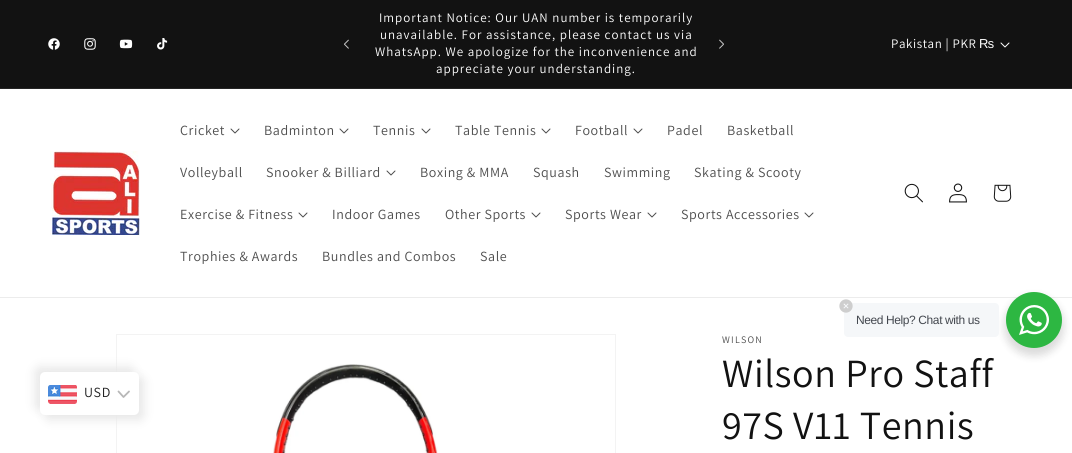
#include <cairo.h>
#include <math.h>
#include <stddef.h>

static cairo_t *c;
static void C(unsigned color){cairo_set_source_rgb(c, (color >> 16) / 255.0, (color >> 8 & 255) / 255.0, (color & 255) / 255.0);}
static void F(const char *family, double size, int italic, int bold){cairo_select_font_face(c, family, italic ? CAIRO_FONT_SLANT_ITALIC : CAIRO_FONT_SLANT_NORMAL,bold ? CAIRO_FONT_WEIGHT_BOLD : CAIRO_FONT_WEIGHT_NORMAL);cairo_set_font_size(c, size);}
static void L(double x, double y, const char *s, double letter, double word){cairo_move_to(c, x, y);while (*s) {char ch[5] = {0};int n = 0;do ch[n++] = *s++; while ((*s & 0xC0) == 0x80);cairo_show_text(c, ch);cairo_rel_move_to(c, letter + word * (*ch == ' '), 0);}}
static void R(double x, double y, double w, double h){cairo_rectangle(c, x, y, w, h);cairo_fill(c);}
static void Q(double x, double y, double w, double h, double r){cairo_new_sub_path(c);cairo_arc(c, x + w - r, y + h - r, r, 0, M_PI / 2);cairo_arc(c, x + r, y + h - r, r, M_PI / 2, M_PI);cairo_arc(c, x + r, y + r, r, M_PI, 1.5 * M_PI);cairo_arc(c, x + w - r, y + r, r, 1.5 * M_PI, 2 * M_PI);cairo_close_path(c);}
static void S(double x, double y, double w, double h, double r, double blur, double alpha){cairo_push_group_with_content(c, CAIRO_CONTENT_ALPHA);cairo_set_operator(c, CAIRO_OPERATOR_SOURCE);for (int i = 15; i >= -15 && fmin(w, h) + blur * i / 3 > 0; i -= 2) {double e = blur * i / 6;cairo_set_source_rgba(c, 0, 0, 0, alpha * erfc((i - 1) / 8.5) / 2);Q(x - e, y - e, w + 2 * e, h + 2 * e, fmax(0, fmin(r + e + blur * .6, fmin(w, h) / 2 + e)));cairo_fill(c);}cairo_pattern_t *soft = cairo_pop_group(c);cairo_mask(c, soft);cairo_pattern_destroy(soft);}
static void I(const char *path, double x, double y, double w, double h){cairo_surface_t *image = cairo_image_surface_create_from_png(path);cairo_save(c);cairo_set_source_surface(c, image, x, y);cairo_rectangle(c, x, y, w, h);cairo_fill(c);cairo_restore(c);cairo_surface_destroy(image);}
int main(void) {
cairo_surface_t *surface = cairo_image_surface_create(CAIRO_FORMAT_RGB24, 1072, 453);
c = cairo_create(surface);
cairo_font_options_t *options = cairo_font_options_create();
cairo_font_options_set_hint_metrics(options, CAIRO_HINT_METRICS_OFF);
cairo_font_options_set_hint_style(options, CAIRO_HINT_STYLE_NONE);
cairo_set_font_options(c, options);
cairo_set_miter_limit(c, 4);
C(0xffffff);
cairo_paint(c);
C(0x121212);
R(0,0,1072,88);
C(0x252525);
R(0,88,1072,1);
I("1.png",48,38,12,12);
I("2.png",84,38,12,12);
I("3.png",119,39,14,10);
I("4.png",157,38,11,12);
I("5.png",344,39,5,10);
F("Assistant",13,0,0);
C(0xffffff);
L(379,22,"Important Notice: Our UAN number is temporarily",1,0);
L(380,39,"unavailable. For assistance, please contact us via",1,0);
L(375,56,"WhatsApp. We apologize for the inconvenience and",1,0);
L(436,73,"appreciate your understanding.",1,0);
I("6.png",719,39,5,10);
L(891,48,"Pakistan | PKR",.6,0);
F("Liberation Sans",13,0,0);
L(979,48,"₨",.6,0);
I("7.png",1000,42,10,6);
C(0xececec);
R(0,297,1072,1);
I("8.png",50,151,90,84);
F("Assistant",14,0,0);
C(0x4d4d4d);
L(180,135,"Cricket",.6,0);
I("9.png",230,128,10,6);
L(264,135,"Badminton",.6,0);
I("9.png",339,128,10,6);
L(373,135,"Tennis",.6,0);
I("9.png",421,128,10,6);
L(455,135,"Table Tennis",.6,0);
I("9.png",541,128,10,6);
L(575,135,"Football",.6,0);
I("9.png",633,128,10,6);
L(667,135,"Padel",.6,0);
L(727,135,"Basketball",.6,0);
L(180,177,"Volleyball",.6,0);
L(266,177,"Snooker & Billiard",.6,0);
I("9.png",386,170,10,6);
L(420,177,"Boxing & MMA",.6,0);
L(533,177,"Squash",.6,0);
L(604,177,"Swimming",.6,0);
L(694,177,"Skating & Scooty",.6,0);
L(180,219,"Exercise & Fitness",.6,0);
I("9.png",298,212,10,6);
L(332,219,"Indoor Games",.6,0);
L(445,219,"Other Sports",.6,0);
I("9.png",531,212,10,6);
L(565,219,"Sports Wear",.6,0);
I("9.png",647,212,10,6);
L(681,219,"Sports Accessories",.6,0);
I("9.png",804,212,10,6);
L(180,261,"Trophies & Awards",.6,0);
L(322,261,"Bundles and Combos",.6,0);
L(480,261,"Sale",.6,0);
I("10.png",904,183,19,20);
I("11.png",949,183,18,20);
I("12.png",993,184,19,18);
C(0x000000);
S(1004,296,60,60,30,4,.14);
C(0xf5f7f9);
Q(844,303,155,34,4);
cairo_fill(c);
I("13.png",839,299,14,14);
F("Liberation Sans",12,0,0);
C(0x43474e);
L(856,324,"Need Help? Chat with us",-.4,0);
C(0x2db742);
cairo_new_path(c);
cairo_arc(c,1034,320,28,0,2 * M_PI);
cairo_fill(c);
I("14.png",1019,305,30,30);
cairo_rectangle(c,116.5,334.5,499,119);
C(0xf3f3f3);
cairo_set_line_width(c,1);
cairo_stroke(c);
C(0xe8e8e8);
S(35,367,99,43,5,5,1);
S(45,377,99,43,5,5,1);
C(0xffffff);
Q(40,372,99,43,5);
cairo_fill(c);
I("15.png",48,385,29,19);
F("Assistant",14,0,0);
C(0x1e1e1e);
L(84,397,"USD",.6,0);
cairo_new_path(c);
cairo_move_to(c,118.5,391.5);
cairo_line_to(c,123.5,397);
cairo_line_to(c,129,391.5);
C(0xb7b7b7);
cairo_set_line_width(c,1.8);
cairo_set_line_cap(c,CAIRO_LINE_CAP_ROUND);
cairo_set_line_join(c,CAIRO_LINE_JOIN_ROUND);
cairo_stroke(c);
I("16.png",273,364,165,89);
F("Assistant",10,0,0);
C(0x4d4d4d);
L(722,343,"WILSON",1.25,0);
F("Assistant",40,0,0);
C(0x121212);
L(722,387,"Wilson Pro Staff",.6,0);
L(722,439,"97S V11 Tennis",.6,0);
cairo_surface_write_to_png(surface, "o.png");
cairo_font_options_destroy(options);
cairo_destroy(c);
cairo_surface_destroy(surface);
return 0;
}
